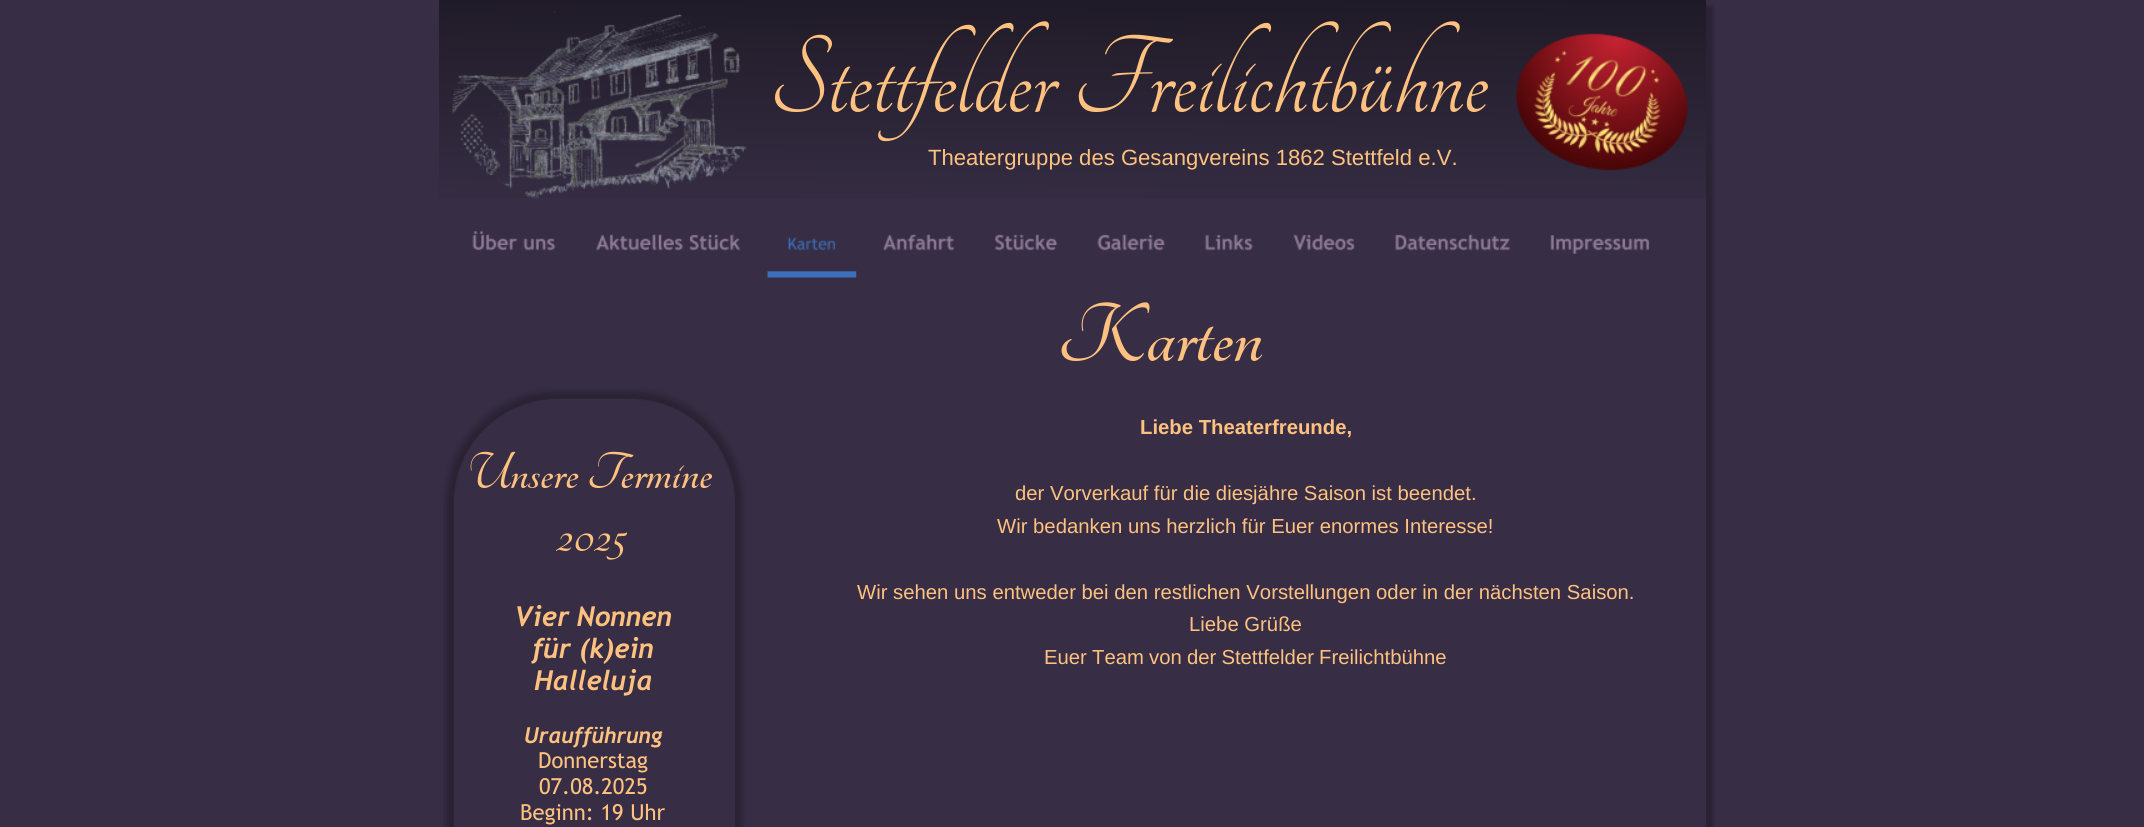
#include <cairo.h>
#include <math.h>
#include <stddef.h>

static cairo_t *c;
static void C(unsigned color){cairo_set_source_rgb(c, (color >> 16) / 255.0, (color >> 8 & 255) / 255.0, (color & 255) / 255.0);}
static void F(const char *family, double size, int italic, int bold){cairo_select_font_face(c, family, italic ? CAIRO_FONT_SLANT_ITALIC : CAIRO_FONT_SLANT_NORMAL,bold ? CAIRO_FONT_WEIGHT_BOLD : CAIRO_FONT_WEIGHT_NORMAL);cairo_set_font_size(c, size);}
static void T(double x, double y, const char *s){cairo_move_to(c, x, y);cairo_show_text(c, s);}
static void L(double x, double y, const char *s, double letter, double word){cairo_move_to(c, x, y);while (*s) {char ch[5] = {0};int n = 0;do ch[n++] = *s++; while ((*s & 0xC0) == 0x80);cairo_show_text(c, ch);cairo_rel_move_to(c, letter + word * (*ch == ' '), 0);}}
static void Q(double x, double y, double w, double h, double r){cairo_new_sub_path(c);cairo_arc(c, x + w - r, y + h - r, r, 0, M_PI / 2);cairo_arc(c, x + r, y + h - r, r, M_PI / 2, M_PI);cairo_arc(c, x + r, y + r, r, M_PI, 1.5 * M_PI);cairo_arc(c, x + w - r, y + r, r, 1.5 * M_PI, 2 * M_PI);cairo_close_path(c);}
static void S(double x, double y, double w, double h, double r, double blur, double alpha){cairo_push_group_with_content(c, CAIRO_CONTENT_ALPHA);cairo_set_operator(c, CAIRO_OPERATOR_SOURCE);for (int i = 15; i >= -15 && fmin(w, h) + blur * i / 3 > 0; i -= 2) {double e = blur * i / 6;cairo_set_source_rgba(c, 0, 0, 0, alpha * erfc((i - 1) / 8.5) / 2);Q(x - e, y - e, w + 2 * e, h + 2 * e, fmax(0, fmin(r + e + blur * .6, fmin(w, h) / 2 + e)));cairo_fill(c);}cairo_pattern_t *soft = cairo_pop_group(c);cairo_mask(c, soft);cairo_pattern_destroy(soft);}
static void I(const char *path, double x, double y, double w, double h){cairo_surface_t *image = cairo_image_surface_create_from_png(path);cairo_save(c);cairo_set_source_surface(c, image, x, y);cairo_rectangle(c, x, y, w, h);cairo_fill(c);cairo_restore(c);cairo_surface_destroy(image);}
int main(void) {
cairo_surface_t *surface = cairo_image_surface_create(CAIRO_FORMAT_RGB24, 2144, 827);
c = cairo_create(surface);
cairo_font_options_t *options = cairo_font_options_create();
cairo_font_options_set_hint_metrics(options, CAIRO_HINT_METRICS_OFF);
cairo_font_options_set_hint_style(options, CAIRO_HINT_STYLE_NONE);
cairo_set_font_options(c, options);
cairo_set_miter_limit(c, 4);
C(0x372e45);
cairo_paint(c);
cairo_save(c);
cairo_rectangle(c,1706,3,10,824);
cairo_clip(c);
C(0x000000);
S(445,6,1268,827,0,2,.25);
cairo_restore(c);
I("1.png",439,0,1267,198);
I("2.png",452,11,295,188);
F("Tangerine",120,0,0);
C(0xffc17f);
T(769,112,"Stettfelder Freilichtbühne");
I("3.png",1516,33,172,138);
F("Liberation Sans",22.1,0,0);
T(928,165,"Theatergruppe des Gesangvereins 1862 Stettfeld e.V.");
F("Tangerine",91,0,1);
T(1057,361,"Karten");
I("4.png",443,388,302,439);
F("Liberation Sans",20.3,0,1);
T(1140,434,"Liebe Theaterfreunde,");
F("Liberation Sans",20.3,0,0);
T(1015,500,"der Vorverkauf für die diesjähre Saison ist beendet.");
T(997,533,"Wir bedanken uns herzlich für Euer enormes Interesse!");
T(857,599,"Wir sehen uns entweder bei den restlichen Vorstellungen oder in der nächsten Saison.");
T(1189,631,"Liebe Grüße");
L(1044,664,"Euer Team von der Stettfelder Freilichtbühne",0,-.5);
F("Tangerine",56.25,0,1);
T(467,488,"Unsere Termine");
T(556,551,"2025");
F("Trebuchet MS",27.5,1,1);
L(514,626,"Vier Nonnen",0,-1);
T(532,658,"für (k)ein");
T(534,690,"Halleluja");
F("Trebuchet MS",22,1,1);
T(524,743,"Uraufführung");
F("Trebuchet MS",22,0,0);
T(538,768,"Donnerstag");
T(539,794,"07.08.2025");
T(520,820,"Beginn: 19 Uhr");
I("5.png",472,231,84,20);
I("6.png",596,234,145,17);
I("7.png",767,235,90,43);
I("8.png",883,234,71,17);
I("9.png",995,234,63,17);
I("10.png",1097,234,68,17);
I("11.png",1205,234,48,17);
I("12.png",1293,234,62,17);
I("13.png",1395,234,116,17);
I("14.png",1550,235,100,19);
cairo_surface_write_to_png(surface, "o.png");
cairo_font_options_destroy(options);
cairo_destroy(c);
cairo_surface_destroy(surface);
return 0;
}
